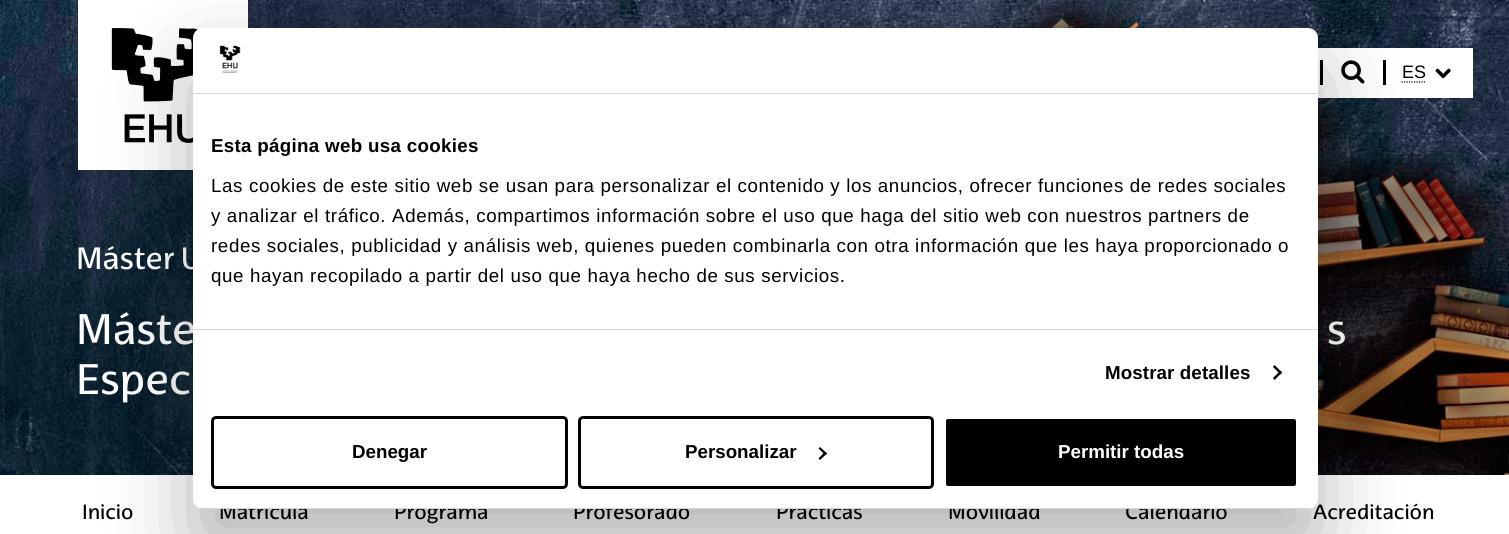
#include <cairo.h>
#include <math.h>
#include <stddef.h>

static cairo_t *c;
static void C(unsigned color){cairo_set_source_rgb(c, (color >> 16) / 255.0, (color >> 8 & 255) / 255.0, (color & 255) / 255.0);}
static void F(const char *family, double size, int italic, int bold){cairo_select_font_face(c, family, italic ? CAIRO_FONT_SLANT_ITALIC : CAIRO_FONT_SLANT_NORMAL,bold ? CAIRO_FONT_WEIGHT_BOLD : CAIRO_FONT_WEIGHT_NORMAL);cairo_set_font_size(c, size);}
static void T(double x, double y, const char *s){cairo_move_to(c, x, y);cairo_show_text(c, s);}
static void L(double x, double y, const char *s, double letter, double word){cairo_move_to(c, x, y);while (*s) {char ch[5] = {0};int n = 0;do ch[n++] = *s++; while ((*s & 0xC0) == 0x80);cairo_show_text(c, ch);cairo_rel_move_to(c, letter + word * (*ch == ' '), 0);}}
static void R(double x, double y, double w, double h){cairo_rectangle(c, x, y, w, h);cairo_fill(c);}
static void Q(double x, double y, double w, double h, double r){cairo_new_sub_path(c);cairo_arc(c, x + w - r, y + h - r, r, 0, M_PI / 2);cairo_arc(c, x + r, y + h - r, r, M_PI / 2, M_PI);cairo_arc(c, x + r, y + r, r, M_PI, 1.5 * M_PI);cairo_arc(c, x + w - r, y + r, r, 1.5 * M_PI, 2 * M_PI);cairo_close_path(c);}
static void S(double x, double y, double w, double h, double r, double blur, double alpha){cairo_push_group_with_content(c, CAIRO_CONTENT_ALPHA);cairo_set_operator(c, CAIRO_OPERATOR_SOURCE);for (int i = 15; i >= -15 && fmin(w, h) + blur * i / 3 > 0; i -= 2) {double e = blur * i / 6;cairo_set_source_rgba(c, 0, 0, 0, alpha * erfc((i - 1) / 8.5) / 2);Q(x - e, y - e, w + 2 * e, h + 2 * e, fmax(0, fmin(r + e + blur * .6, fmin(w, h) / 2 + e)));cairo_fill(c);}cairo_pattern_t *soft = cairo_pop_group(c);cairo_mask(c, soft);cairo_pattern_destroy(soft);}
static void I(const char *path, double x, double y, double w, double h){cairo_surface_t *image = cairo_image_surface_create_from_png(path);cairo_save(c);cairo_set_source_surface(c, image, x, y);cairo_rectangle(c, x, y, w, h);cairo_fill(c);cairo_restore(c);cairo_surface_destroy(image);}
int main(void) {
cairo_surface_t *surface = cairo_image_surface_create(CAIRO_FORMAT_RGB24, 1509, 534);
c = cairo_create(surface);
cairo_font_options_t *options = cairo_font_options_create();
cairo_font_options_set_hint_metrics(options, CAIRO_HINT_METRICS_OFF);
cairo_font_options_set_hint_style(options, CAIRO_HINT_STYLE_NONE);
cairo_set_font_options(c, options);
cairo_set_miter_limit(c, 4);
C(0xffffff);
cairo_paint(c);
I("4.png",0,0,1509,475);
I("1.png",78,0,170,170);
C(0xffffff);
R(1318,48,155,50);
C(0x000000);
R(1320,60,3,25);
I("2.png",1341,60,24,24);
R(1383,60,3,25);
F("Liberation Sans",18,0,0);
T(1402,78,"ES");
cairo_new_path(c);
cairo_move_to(c,1401.5,82);
cairo_line_to(c,1425,82);
cairo_set_line_width(c,1.2);
cairo_set_dash(c,(double[]){1.25,1.25},2,0);
cairo_stroke(c);
I("3.png",1435,68,16,11);
F("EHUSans",30,0,0);
C(0xffffff);
T(76,269,"Máster U");
F("EHUSans",41.5,0,0);
T(76,344,"Máste");
T(1327,344,"s");
T(76,394,"Espec");
F("EHUSans",20,0,0);
C(0x000000);
T(82,519,"Inicio");
T(219,519,"Matrícula");
T(394,519,"Programa");
T(573,519,"Profesorado");
T(776,519,"Prácticas");
T(948,519,"Movilidad");
T(1125,519,"Calendario");
T(1313,519,"Acreditación");
C(0x000000);
S(193,68,1125,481,10,42.5,.3);
C(0xffffff);
Q(193,28,1125,481,10);
cairo_fill(c);
C(0xd6d6d6);
R(193,93,1125,1);
I("5.png",219,45,22,28);
R(193,329,1125,1);
F("Liberation Sans",18.75,0,1);
C(0x000000);
L(211,152,"Esta página web usa cookies",.3,0);
F("Liberation Sans",18.75,0,0);
L(211,192,"Las cookies de este sitio web se usan para personalizar el contenido y los anuncios, ofrecer funciones de redes sociales",.62,0);
L(211,222,"y analizar el tráfico. Además, compartimos información sobre el uso que haga del sitio web con nuestros partners de",.62,0);
L(211,252,"redes sociales, publicidad y análisis web, quienes pueden combinarla con otra información que les haya proporcionado o",.62,0);
L(211,282,"que hayan recopilado a partir del uso que haya hecho de sus servicios.",.62,0);
F("Liberation Sans",18.75,0,1);
L(1105,379,"Mostrar detalles",.1,0);
cairo_new_path(c);
cairo_move_to(c,1274.5,365);
cairo_line_to(c,1282,372.5);
cairo_line_to(c,1280.5,374.5);
cairo_line_to(c,1273,367);
cairo_close_path(c);
cairo_fill(c);
cairo_new_path(c);
cairo_move_to(c,1280.5,370.5);
cairo_line_to(c,1282,372.5);
cairo_line_to(c,1274.5,380);
cairo_line_to(c,1273,378);
cairo_close_path(c);
cairo_fill(c);
cairo_save(c);
Q(193,28,1125,481,10);
cairo_clip(c);
C(0xd6d6d6);
R(193,508,1125,1);
cairo_restore(c);
Q(212.5,417.5,354,70,3.5);
cairo_set_line_width(c,3);
cairo_set_dash(c,NULL,0,0);
cairo_stroke(c);
T(352,458,"Denegar");
Q(579.5,417.5,353,70,3.5);
cairo_stroke(c);
T(685,458,"Personalizar");
cairo_new_path(c);
cairo_move_to(c,820,447);
cairo_line_to(c,827,453.5);
cairo_line_to(c,825,455);
cairo_line_to(c,818.5,448.5);
cairo_close_path(c);
cairo_fill(c);
cairo_new_path(c);
cairo_move_to(c,825,451.5);
cairo_line_to(c,827,453.5);
cairo_line_to(c,820,460);
cairo_line_to(c,818.5,458.5);
cairo_close_path(c);
cairo_fill(c);
Q(944.5,417.5,353,70,3.5);
cairo_fill_preserve(c);
C(0xffffff);
cairo_stroke(c);
T(1058,458,"Permitir todas");
cairo_surface_write_to_png(surface, "o.png");
cairo_font_options_destroy(options);
cairo_destroy(c);
cairo_surface_destroy(surface);
return 0;
}
